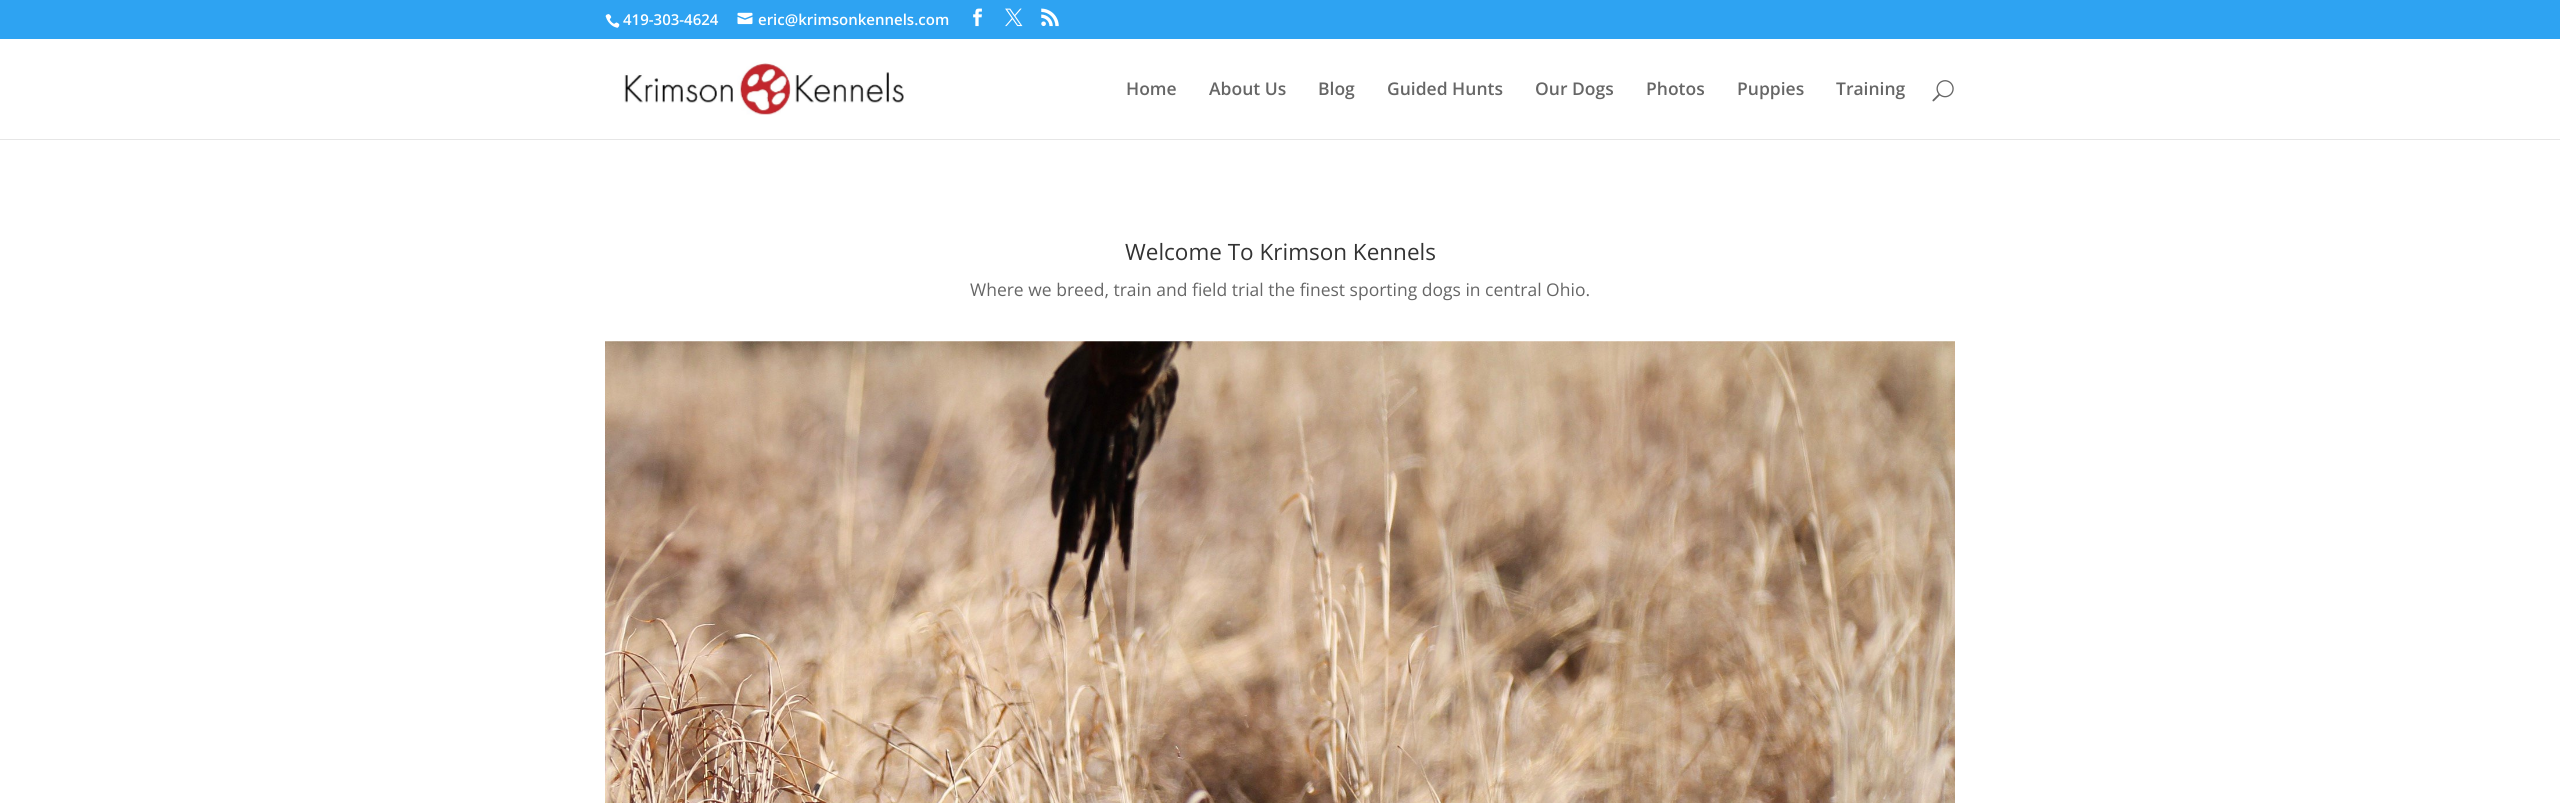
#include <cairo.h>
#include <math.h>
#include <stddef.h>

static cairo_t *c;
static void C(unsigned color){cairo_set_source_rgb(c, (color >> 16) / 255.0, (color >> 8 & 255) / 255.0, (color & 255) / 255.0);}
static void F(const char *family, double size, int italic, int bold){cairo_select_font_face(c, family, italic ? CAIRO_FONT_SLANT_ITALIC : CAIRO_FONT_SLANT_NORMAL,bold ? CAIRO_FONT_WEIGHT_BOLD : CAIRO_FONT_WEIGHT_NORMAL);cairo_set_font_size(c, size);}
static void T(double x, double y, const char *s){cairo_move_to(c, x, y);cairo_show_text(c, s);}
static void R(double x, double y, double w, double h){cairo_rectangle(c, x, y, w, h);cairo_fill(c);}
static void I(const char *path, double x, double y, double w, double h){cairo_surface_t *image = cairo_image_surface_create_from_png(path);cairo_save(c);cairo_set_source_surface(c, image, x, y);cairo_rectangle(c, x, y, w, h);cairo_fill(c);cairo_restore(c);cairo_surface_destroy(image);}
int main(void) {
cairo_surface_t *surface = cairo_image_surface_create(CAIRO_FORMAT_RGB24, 2560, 803);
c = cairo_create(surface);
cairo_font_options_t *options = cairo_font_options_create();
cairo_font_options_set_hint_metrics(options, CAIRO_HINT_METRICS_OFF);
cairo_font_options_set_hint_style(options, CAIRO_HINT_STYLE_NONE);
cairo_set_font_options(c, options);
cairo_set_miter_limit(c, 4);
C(0xffffff);
cairo_paint(c);
C(0x2ea3f2);
R(0,0,2560,39);
I("1.png",605,14,15,14);
F("Open Sans SemiBold",15,0,0);
C(0xffffff);
T(623,25,"419-303-4624");
I("2.png",737,12,16,13);
T(758,25,"eric@krimsonkennels.com");
I("3.png",973,8,9,19);
I("4.png",1005,8,18,19);
I("5.png",1041,8,18,19);
C(0xe6e6e6);
R(0,139,2560,1);
I("6.png",624,62,280,53);
F("Open Sans SemiBold",17.5,0,0);
C(0x666666);
T(1126,95,"Home");
T(1209,95,"About Us");
T(1318,95,"Blog");
T(1387,95,"Guided Hunts");
T(1535,95,"Our Dogs");
T(1646,95,"Photos");
T(1737,95,"Puppies");
T(1836,95,"Training");
I("7.png",1932,80,22,22);
F("Open Sans",22.5,0,0);
C(0x333333);
T(1125,260,"Welcome To Krimson Kennels");
F("Open Sans",17.5,0,0);
C(0x666666);
T(970,296,"Where we breed, train and field trial the finest sporting dogs in central Ohio.");
I("8.png",605,341,1350,462);
cairo_surface_write_to_png(surface, "o.png");
cairo_font_options_destroy(options);
cairo_destroy(c);
cairo_surface_destroy(surface);
return 0;
}
